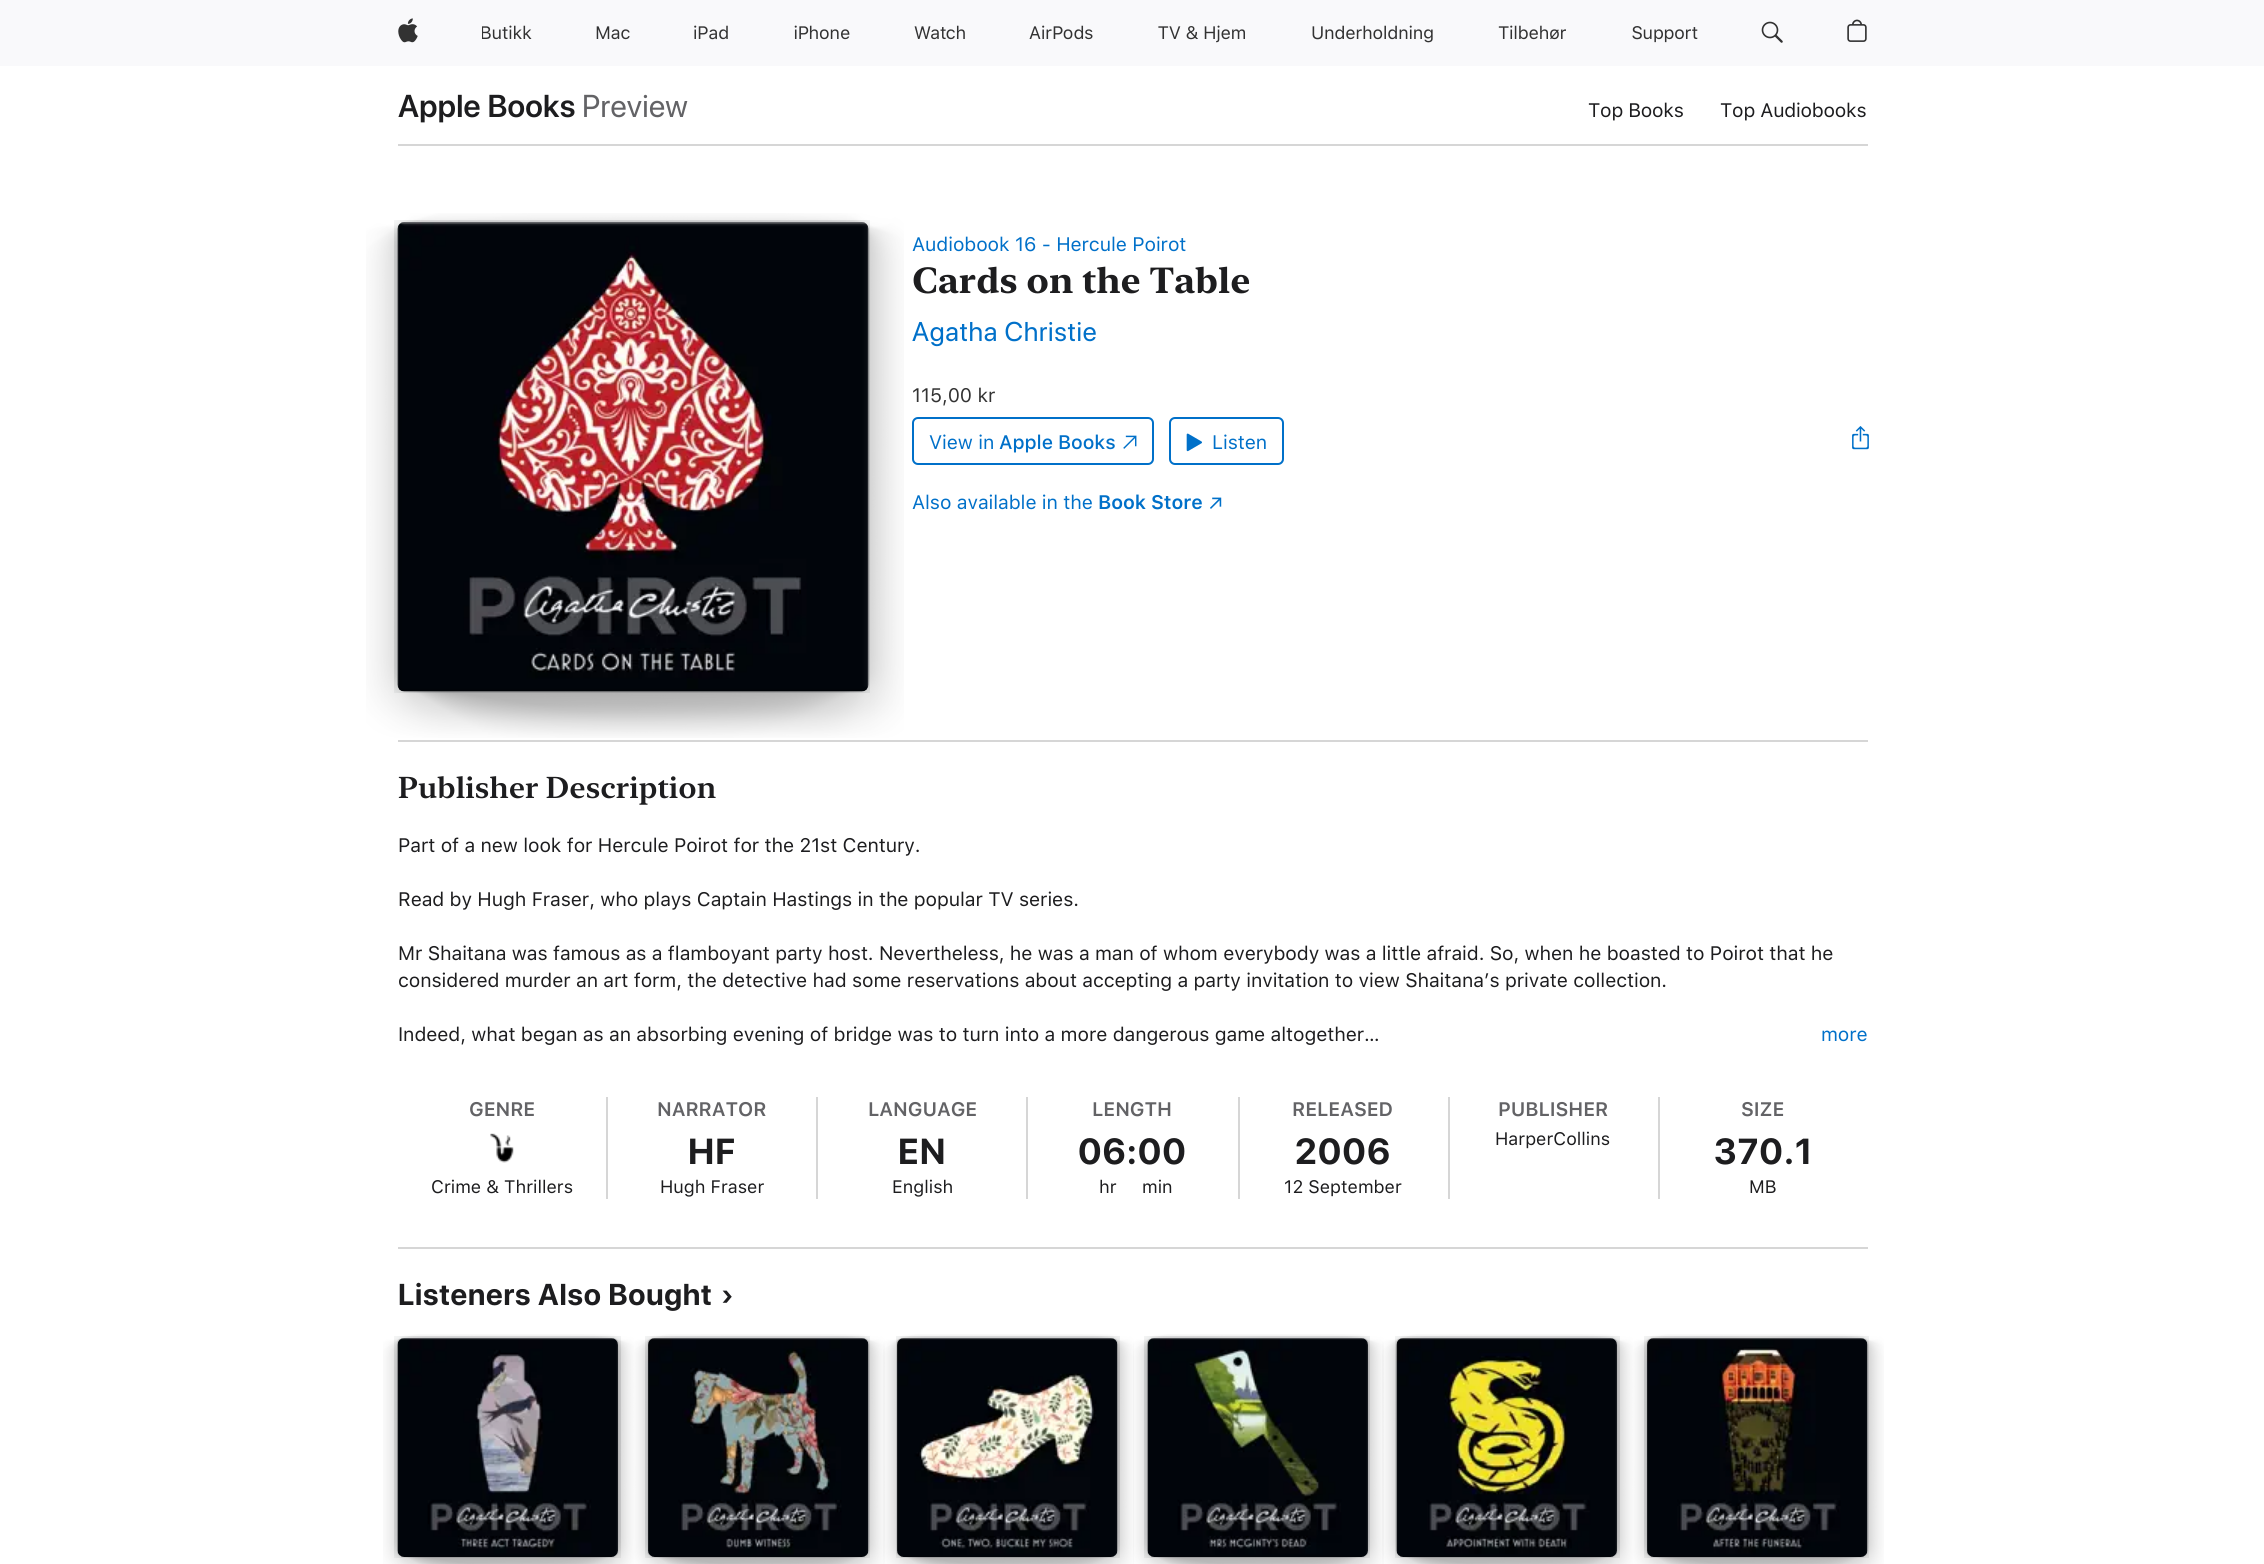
#include <cairo.h>
#include <math.h>
#include <stddef.h>

static cairo_t *c;
static void C(unsigned color){cairo_set_source_rgb(c, (color >> 16) / 255.0, (color >> 8 & 255) / 255.0, (color & 255) / 255.0);}
static void F(const char *family, double size, int italic, int bold){cairo_select_font_face(c, family, italic ? CAIRO_FONT_SLANT_ITALIC : CAIRO_FONT_SLANT_NORMAL,bold ? CAIRO_FONT_WEIGHT_BOLD : CAIRO_FONT_WEIGHT_NORMAL);cairo_set_font_size(c, size);}
static void T(double x, double y, const char *s){cairo_move_to(c, x, y);cairo_show_text(c, s);}
static void L(double x, double y, const char *s, double letter, double word){cairo_move_to(c, x, y);while (*s) {char ch[5] = {0};int n = 0;do ch[n++] = *s++; while ((*s & 0xC0) == 0x80);cairo_show_text(c, ch);cairo_rel_move_to(c, letter + word * (*ch == ' '), 0);}}
static void R(double x, double y, double w, double h){cairo_rectangle(c, x, y, w, h);cairo_fill(c);}
static void Q(double x, double y, double w, double h, double r){cairo_new_sub_path(c);cairo_arc(c, x + w - r, y + h - r, r, 0, M_PI / 2);cairo_arc(c, x + r, y + h - r, r, M_PI / 2, M_PI);cairo_arc(c, x + r, y + r, r, M_PI, 1.5 * M_PI);cairo_arc(c, x + w - r, y + r, r, 1.5 * M_PI, 2 * M_PI);cairo_close_path(c);}
static void I(const char *path, double x, double y, double w, double h){cairo_surface_t *image = cairo_image_surface_create_from_png(path);cairo_save(c);cairo_set_source_surface(c, image, x, y);cairo_rectangle(c, x, y, w, h);cairo_fill(c);cairo_restore(c);cairo_surface_destroy(image);}
int main(void) {
cairo_surface_t *surface = cairo_image_surface_create(CAIRO_FORMAT_RGB24, 2264, 1564);
c = cairo_create(surface);
cairo_font_options_t *options = cairo_font_options_create();
cairo_font_options_set_hint_metrics(options, CAIRO_HINT_METRICS_OFF);
cairo_font_options_set_hint_style(options, CAIRO_HINT_STYLE_NONE);
cairo_set_font_options(c, options);
cairo_set_miter_limit(c, 4);
C(0xffffff);
cairo_paint(c);
C(0xf9f9fb);
R(0,0,2264,66);
I("1.png",398,18,20,25);
I("2.png",482,25,50,15);
I("3.png",596,26,34,14);
I("4.png",694,25,34,15);
I("5.png",794,25,56,15);
I("6.png",914,25,51,15);
I("7.png",1029,25,64,15);
I("8.png",1158,25,87,18);
I("9.png",1312,25,121,18);
I("10.png",1498,25,68,15);
I("11.png",1632,26,66,17);
I("12.png",1761,21,22,22);
I("13.png",1847,19,20,23);
F("SF Pro Display SemiBold",31.5,0,0);
C(0x1d1d1f);
L(398,117,"Apple Books",.25,0);
F("SF Pro Display",31.5,0,0);
C(0x636366);
L(582,117,"Preview",.25,0);
F("SF Pro Text",19.5,0,0);
C(0x1d1d1f);
L(1588,117,"Top Books",-.25,0);
L(1720,117,"Top Audiobooks",-.25,0);
C(0xd6d6d6);
R(398,144,1470,2);
I("14.png",366,213,538,525);
I("15.png",394,220,476,473);
I("16.png",397,222,472,470);
I("17.png",398,222,471,470);
C(0x0070c9);
L(912,251,"Audiobook 16 - Hercule Poirot",-.1,0);
F("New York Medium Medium",36,0,0);
C(0x1d1d1f);
T(912,293,"Cards on the Table");
F("SF Pro Display",27,0,0);
C(0x0070c9);
L(912,341,"Agatha Christie",.75,0);
F("SF Pro Text",19.5,0,0);
C(0x333333);
L(912,402,"115,00 kr",-.1,0);
Q(913,418,240,46,5);
C(0x0070c9);
cairo_stroke(c);
L(929,449,"View in",-.1,0);
F("SF Pro Text Medium",19.5,0,0);
L(999,449,"Apple Books",-.1,0);
I("18.png",1123,435,14,14);
Q(1170,418,113,46,5);
cairo_stroke(c);
I("19.png",1186,433,16,19);
F("SF Pro Text",19.5,0,0);
L(1212,449,"Listen",-.1,0);
I("20.png",1852,426,17,24);
L(912,509,"Also available in the",-.1,0);
F("SF Pro Text SemiBold",19.5,0,0);
L(1098,509,"Book Store",-.1,0);
I("21.png",1210,497,12,12);
C(0xd6d6d6);
R(398,740,1470,2);
F("New York Medium SemiBold",30,0,0);
C(0x1d1d1f);
T(398,798,"Publisher Description");
F("SF Pro Text",19.5,0,0);
L(398,852,"Part of a new look for Hercule Poirot for the 21st Century.",-.1,0);
L(398,906,"Read by Hugh Fraser, who plays Captain Hastings in the popular TV series.",-.1,0);
L(398,960,"Mr Shaitana was famous as a flamboyant party host. Nevertheless, he was a man of whom everybody was a little afraid. So, when he boasted to Poirot that he",-.1,0);
L(398,987,"considered murder an art form, the detective had some reservations about accepting a party invitation to view Shaitana’s private collection.",-.1,0);
L(398,1041,"Indeed, what began as an absorbing evening of bridge was to turn into a more dangerous game altogether…",-.1,0);
C(0x0070c9);
L(1821,1041,"more",-.1,0);
C(0xd6d6d6);
R(606,1097,2,102);
F("SF Pro Text SemiBold",19.5,0,0);
C(0x636366);
L(469,1116,"GENRE",-.1,0);
I("22.png",490,1133,24,30);
F("SF Pro Text",18,0,0);
C(0x1d1d1f);
T(431,1193,"Crime & Thrillers");
C(0xd6d6d6);
R(816,1097,2,102);
F("SF Pro Text SemiBold",19.5,0,0);
C(0x636366);
L(657,1116,"NARRATOR",-.1,0);
F("SF Pro Display",36,0,1);
C(0x1d1d1f);
L(688,1164,"HF",1,0);
F("SF Pro Text",18,0,0);
T(660,1193,"Hugh Fraser");
C(0xd6d6d6);
R(1026,1097,2,102);
F("SF Pro Text SemiBold",19.5,0,0);
C(0x636366);
L(868,1116,"LANGUAGE",-.1,0);
F("SF Pro Display",36,0,1);
C(0x1d1d1f);
L(898,1164,"EN",1,0);
F("SF Pro Text",18,0,0);
T(892,1193,"English");
C(0xd6d6d6);
R(1238,1097,2,102);
F("SF Pro Text SemiBold",19.5,0,0);
C(0x636366);
L(1092,1116,"LENGTH",-.1,0);
F("SF Pro Display",36,0,1);
C(0x1d1d1f);
L(1078,1164,"06:00",1,0);
F("SF Pro Text",18,0,0);
T(1099,1193,"hr");
T(1142,1193,"min");
C(0xd6d6d6);
R(1448,1097,2,102);
F("SF Pro Text SemiBold",19.5,0,0);
C(0x636366);
L(1292,1116,"RELEASED",-.1,0);
F("SF Pro Display",36,0,1);
C(0x1d1d1f);
L(1295,1164,"2006",1,0);
F("SF Pro Text",18,0,0);
T(1284,1193,"12 September");
C(0xd6d6d6);
R(1658,1097,2,102);
F("SF Pro Text SemiBold",19.5,0,0);
C(0x636366);
L(1498,1116,"PUBLISHER",-.1,0);
F("SF Pro Text",18,0,0);
C(0x1d1d1f);
T(1495,1145,"HarperCollins");
F("SF Pro Text SemiBold",19.5,0,0);
C(0x636366);
L(1741,1116,"SIZE",-.1,0);
F("SF Pro Display",36,0,1);
C(0x1d1d1f);
L(1714,1164,"370.1",1,0);
F("SF Pro Text",18,0,0);
T(1749,1193,"MB");
C(0xd6d6d6);
R(398,1247,1470,2);
F("SF Pro Display",30,0,1);
C(0x1d1d1f);
L(398,1305,"Listeners Also Bought",.75,0);
L(721,1305,"›",.75,0);
I("23.png",383,1334,251,230);
I("24.png",394,1336,227,222);
I("25.png",397,1338,221,219);
I("26.png",397,1338,221,219);
I("27.png",634,1334,251,230);
I("28.png",645,1336,225,222);
I("29.png",648,1338,221,219);
I("30.png",648,1338,221,219);
I("31.png",883,1334,251,230);
I("32.png",896,1336,224,222);
I("33.png",897,1338,221,219);
I("34.png",897,1338,221,219);
I("35.png",1133,1334,251,230);
I("36.png",1144,1336,226,222);
I("37.png",1147,1338,221,219);
I("38.png",1147,1338,221,219);
I("39.png",1382,1334,251,230);
I("40.png",1395,1336,225,222);
I("41.png",1396,1338,221,219);
I("42.png",1396,1338,221,219);
I("27.png",1633,1334,251,230);
I("43.png",1644,1336,225,222);
I("44.png",1647,1338,221,219);
I("45.png",1647,1338,221,219);
cairo_surface_write_to_png(surface, "o.png");
cairo_font_options_destroy(options);
cairo_destroy(c);
cairo_surface_destroy(surface);
return 0;
}
